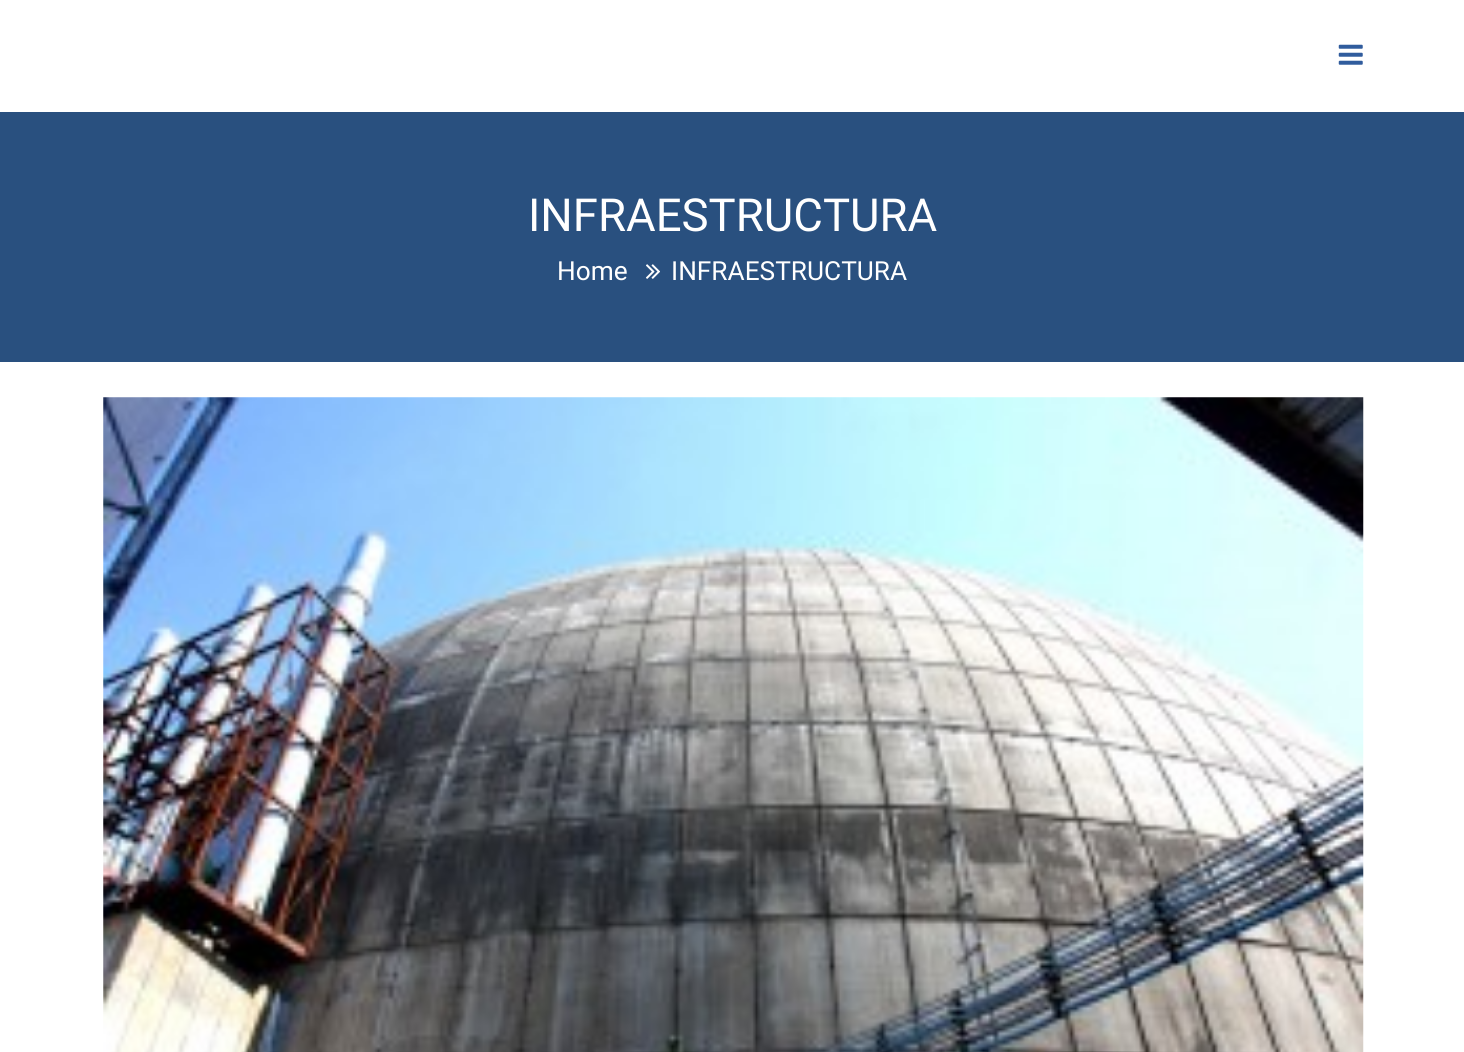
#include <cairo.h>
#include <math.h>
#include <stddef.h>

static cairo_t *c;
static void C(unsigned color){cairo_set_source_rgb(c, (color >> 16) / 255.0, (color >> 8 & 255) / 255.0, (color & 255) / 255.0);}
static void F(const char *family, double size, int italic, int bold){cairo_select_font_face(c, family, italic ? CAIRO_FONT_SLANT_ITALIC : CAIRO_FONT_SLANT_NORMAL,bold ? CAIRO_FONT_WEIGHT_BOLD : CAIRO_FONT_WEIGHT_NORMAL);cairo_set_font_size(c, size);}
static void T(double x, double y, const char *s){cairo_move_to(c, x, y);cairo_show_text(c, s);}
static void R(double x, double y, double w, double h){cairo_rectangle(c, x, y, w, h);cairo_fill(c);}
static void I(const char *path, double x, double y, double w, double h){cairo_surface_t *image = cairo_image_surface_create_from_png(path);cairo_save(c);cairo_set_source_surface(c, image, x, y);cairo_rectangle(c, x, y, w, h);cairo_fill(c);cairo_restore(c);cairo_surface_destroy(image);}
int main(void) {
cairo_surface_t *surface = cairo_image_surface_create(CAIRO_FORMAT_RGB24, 1464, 1052);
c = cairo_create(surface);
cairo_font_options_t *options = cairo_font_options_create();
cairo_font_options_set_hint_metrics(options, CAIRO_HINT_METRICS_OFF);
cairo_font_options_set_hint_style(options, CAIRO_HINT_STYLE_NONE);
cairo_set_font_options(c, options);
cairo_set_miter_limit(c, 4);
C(0xffffff);
cairo_paint(c);
I("1.png",1338,44,25,21);
C(0x29507f);
R(0,112,1464,250);
F("Roboto",45.5,0,0);
C(0xffffff);
T(528,231,"INFRAESTRUCTURA");
F("Roboto",26.25,0,0);
T(557,280,"Home");
I("2.png",646,264,14,15);
T(671,280,"INFRAESTRUCTURA");
I("3.png",103,397,1261,655);
cairo_surface_write_to_png(surface, "o.png");
cairo_font_options_destroy(options);
cairo_destroy(c);
cairo_surface_destroy(surface);
return 0;
}
